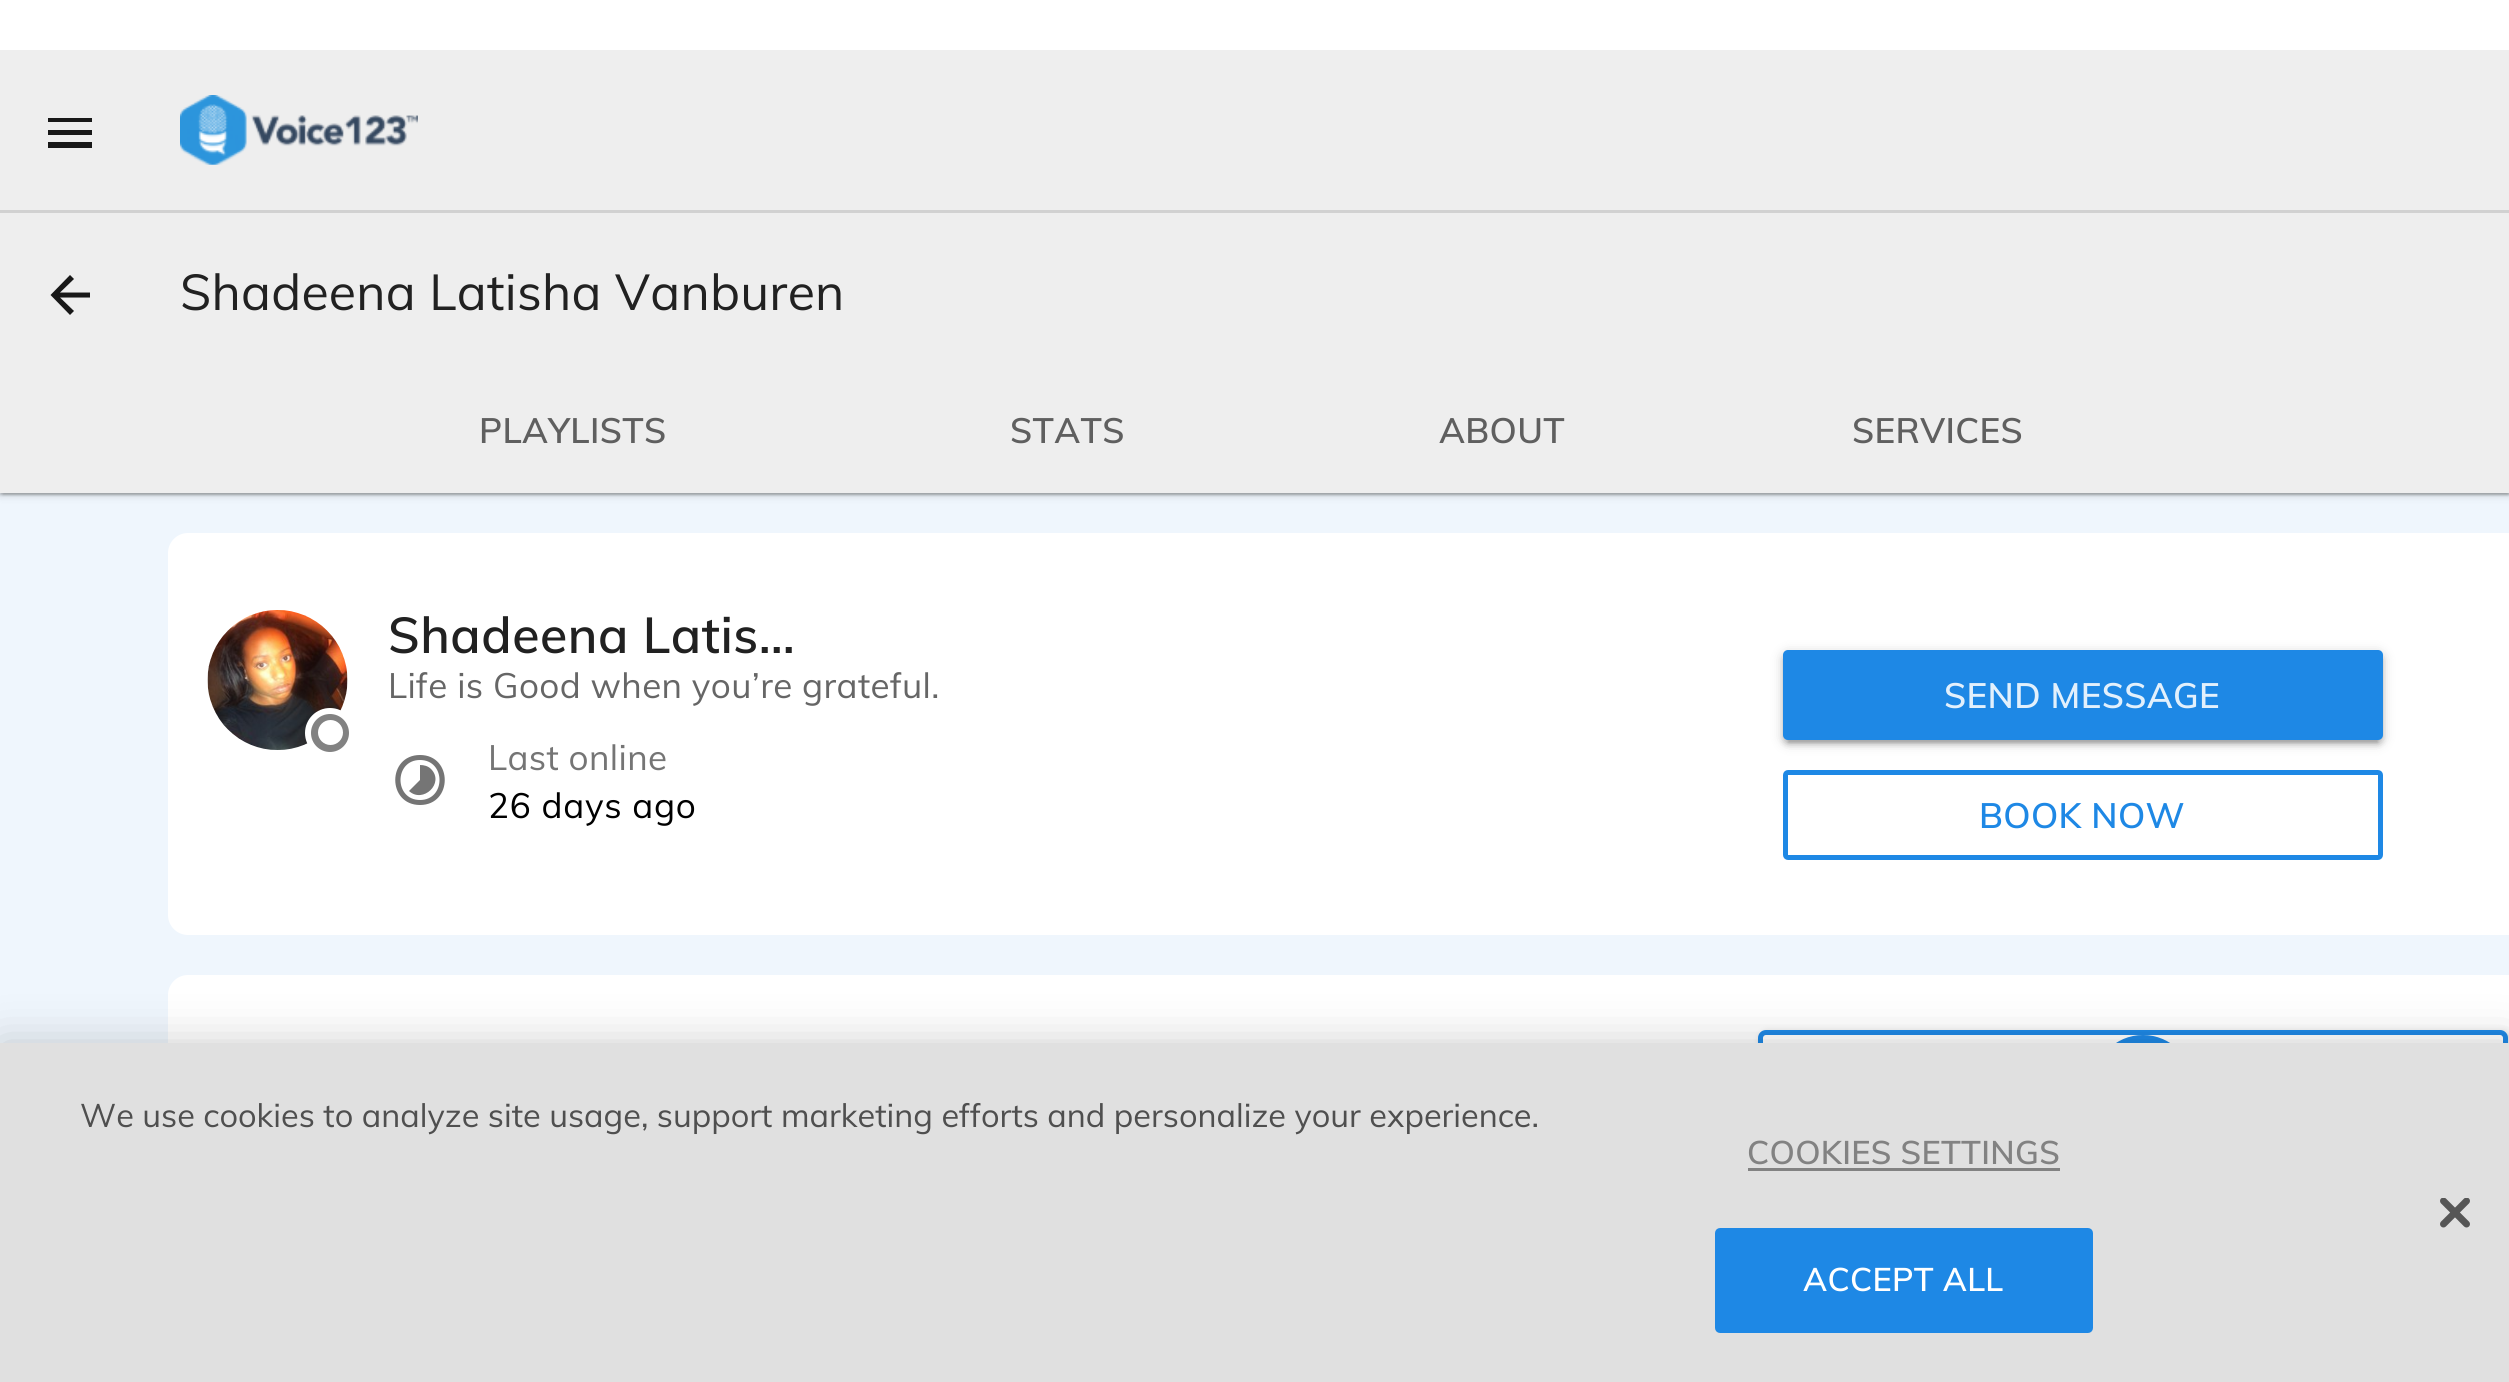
#include <cairo.h>
#include <math.h>
#include <stddef.h>

static cairo_t *c;
static void C(unsigned color){cairo_set_source_rgb(c, (color >> 16) / 255.0, (color >> 8 & 255) / 255.0, (color & 255) / 255.0);}
static void F(const char *family, double size, int italic, int bold){cairo_select_font_face(c, family, italic ? CAIRO_FONT_SLANT_ITALIC : CAIRO_FONT_SLANT_NORMAL,bold ? CAIRO_FONT_WEIGHT_BOLD : CAIRO_FONT_WEIGHT_NORMAL);cairo_set_font_size(c, size);}
static void T(double x, double y, const char *s){cairo_move_to(c, x, y);cairo_show_text(c, s);}
static void L(double x, double y, const char *s, double letter, double word){cairo_move_to(c, x, y);while (*s) {char ch[5] = {0};int n = 0;do ch[n++] = *s++; while ((*s & 0xC0) == 0x80);cairo_show_text(c, ch);cairo_rel_move_to(c, letter + word * (*ch == ' '), 0);}}
static void R(double x, double y, double w, double h){cairo_rectangle(c, x, y, w, h);cairo_fill(c);}
static void Q(double x, double y, double w, double h, double r){cairo_new_sub_path(c);cairo_arc(c, x + w - r, y + h - r, r, 0, M_PI / 2);cairo_arc(c, x + r, y + h - r, r, M_PI / 2, M_PI);cairo_arc(c, x + r, y + r, r, M_PI, 1.5 * M_PI);cairo_arc(c, x + w - r, y + r, r, 1.5 * M_PI, 2 * M_PI);cairo_close_path(c);}
static void S(double x, double y, double w, double h, double r, double blur, double alpha){cairo_push_group_with_content(c, CAIRO_CONTENT_ALPHA);cairo_set_operator(c, CAIRO_OPERATOR_SOURCE);for (int i = 15; i >= -15 && fmin(w, h) + blur * i / 3 > 0; i -= 2) {double e = blur * i / 6;cairo_set_source_rgba(c, 0, 0, 0, alpha * erfc((i - 1) / 8.5) / 2);Q(x - e, y - e, w + 2 * e, h + 2 * e, fmax(0, fmin(r + e + blur * .6, fmin(w, h) / 2 + e)));cairo_fill(c);}cairo_pattern_t *soft = cairo_pop_group(c);cairo_mask(c, soft);cairo_pattern_destroy(soft);}
static void I(const char *path, double x, double y, double w, double h){cairo_surface_t *image = cairo_image_surface_create_from_png(path);cairo_save(c);cairo_set_source_surface(c, image, x, y);cairo_rectangle(c, x, y, w, h);cairo_fill(c);cairo_restore(c);cairo_surface_destroy(image);}
int main(void) {
cairo_surface_t *surface = cairo_image_surface_create(CAIRO_FORMAT_RGB24, 2509, 1382);
c = cairo_create(surface);
cairo_font_options_t *options = cairo_font_options_create();
cairo_font_options_set_hint_metrics(options, CAIRO_HINT_METRICS_OFF);
cairo_font_options_set_hint_style(options, CAIRO_HINT_STYLE_NONE);
cairo_set_font_options(c, options);
cairo_set_miter_limit(c, 4);
C(0xffffff);
cairo_paint(c);
C(0xeff6fd);
R(0,493,2509,550);
C(0x000000);
S(3,58,2505,437,0,1,.12);
S(0,53,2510,442,0,1,.14);
cairo_save(c);
cairo_rectangle(c,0,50,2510,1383);
cairo_clip(c);
S(0,53,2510,442,0,4,.2);
cairo_restore(c);
C(0xeeeeee);
R(0,50,2509,443);
C(0x181818);
cairo_new_path(c);
cairo_move_to(c,48,118);
cairo_line_to(c,92,118);
cairo_line_to(c,92,122);
cairo_line_to(c,48,122);
cairo_line_to(c,48,118);
cairo_move_to(c,48,130);
cairo_line_to(c,92,130);
cairo_line_to(c,92,135);
cairo_line_to(c,48,135);
cairo_line_to(c,48,130);
cairo_move_to(c,48,142);
cairo_line_to(c,92,142);
cairo_line_to(c,92,148);
cairo_line_to(c,48,148);
cairo_close_path(c);
cairo_fill(c);
I("1.png",180,95,238,70);
C(0xd1d1d1);
R(0,210,2509,3);
C(0x181818);
cairo_new_path(c);
cairo_move_to(c,90,292.5);
cairo_line_to(c,90,297.5);
cairo_line_to(c,60,297.5);
cairo_line_to(c,74,311);
cairo_line_to(c,70,315);
cairo_line_to(c,50.5,295);
cairo_line_to(c,70,275);
cairo_line_to(c,74,279);
cairo_line_to(c,60,292.5);
cairo_close_path(c);
cairo_fill(c);
F("Muli",50,0,0);
C(0x212121);
L(180,310,"Shadeena Latisha Vanburen",.25,0);
F("Muli SemiBold",35,0,0);
C(0x5f5f5f);
L(479,443,"PLAYLISTS",.35,0);
L(1010,443,"STATS",.35,0);
L(1439,443,"ABOUT",.35,0);
L(1852,443,"SERVICES",.35,0);
C(0xffffff);
cairo_new_path(c);
cairo_move_to(c,188,533);
cairo_line_to(c,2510,533);
cairo_line_to(c,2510,935);
cairo_line_to(c,188,935);
cairo_curve_to(c,177,935,168,926,168,915);
cairo_line_to(c,168,553);
cairo_curve_to(c,168,542,177,533,188,533);
cairo_close_path(c);
cairo_fill(c);
I("2.png",207,610,141,140);
C(0x828282);
cairo_arc(c,330,733,22,0,2 * M_PI);
cairo_fill_preserve(c);
C(0xffffff);
cairo_set_line_width(c,6);
cairo_stroke(c);
cairo_arc(c,330.5,732.5,12.5,0,2 * M_PI);
cairo_fill(c);
F("Muli SemiBold",50,0,0);
C(0x212121);
L(388,653,"Shadeena Latis…",.5,0);
F("Muli",35,0,0);
C(0x666666);
L(388,698,"Life is Good when you’re grateful.",.35,0);
C(0x757575);
cairo_new_path(c);
cairo_move_to(c,420,800);
cairo_curve_to(c,394,800,394,760,420,760);
cairo_curve_to(c,446,760,446,800,420,800);
cairo_move_to(c,420,755);
cairo_curve_to(c,387,755,387,805,420,805);
cairo_curve_to(c,453,805,453,755,420,755);
cairo_move_to(c,431,769);
cairo_curve_to(c,428,766,424,765,420,765);
cairo_line_to(c,420,780);
cairo_line_to(c,409,791);
cairo_curve_to(c,423,804,445,783,431,769);
cairo_close_path(c);
cairo_fill(c);
L(488,770,"Last online",.35,0);
C(0x000000);
L(488,818,"26 days ago",.75,0);
C(0x000000);
S(1788,663,590,80,0,1,.12);
S(1783,655,600,90,5,2.5,.14);
S(1783,653,600,90,5,6,.2);
C(0x1e88e5);
Q(1783,650,600,90,5);
cairo_fill(c);
F("Muli SemiBold",35,0,0);
C(0xe2f0fc);
L(1944,708,"SEND MESSAGE",.35,0);
Q(1785.5,772.5,595,85,2.5);
C(0x1e88e5);
cairo_set_line_width(c,5);
cairo_stroke(c);
L(1979,828,"BOOK NOW",.35,0);
C(0xffffff);
cairo_new_path(c);
cairo_move_to(c,188,975);
cairo_line_to(c,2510,975);
cairo_line_to(c,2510,1300);
cairo_line_to(c,188,1300);
cairo_curve_to(c,177,1300,168,1291,168,1280);
cairo_line_to(c,168,995);
cairo_curve_to(c,168,984,177,975,188,975);
cairo_close_path(c);
cairo_fill(c);
C(0xe6e6e6);
S(1758,1030,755,115,10,2.5,1);
C(0xffffff);
Q(1760.5,1032.5,745,105,5.5);
cairo_fill_preserve(c);
C(0x1e88e5);
cairo_stroke(c);
cairo_arc(c,2143,1085,50,0,2 * M_PI);
cairo_fill(c);
C(0x000000);
S(0,1043,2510,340,0,22.5,.2);
C(0xe0e0e0);
R(0,1043,2509,339);
F("Muli",32.5,0,0);
C(0x4f4f4f);
T(80,1127,"We use cookies to analyze site usage, support marketing efforts and personalize your experience.");
F("Muli SemiBold",32.5,0,0);
C(0x828282);
L(1747,1164,"COOKIES SETTINGS",.3,0);
R(1748,1168,312,3);
C(0x1e88e5);
Q(1716.5,1229.5,375,102,3.5);
cairo_fill_preserve(c);
cairo_set_line_width(c,3);
cairo_stroke(c);
C(0xffffff);
L(1803,1291,"ACCEPT ALL",.3,0);
I("3.png",2440,1198,30,30);
cairo_surface_write_to_png(surface, "o.png");
cairo_font_options_destroy(options);
cairo_destroy(c);
cairo_surface_destroy(surface);
return 0;
}
